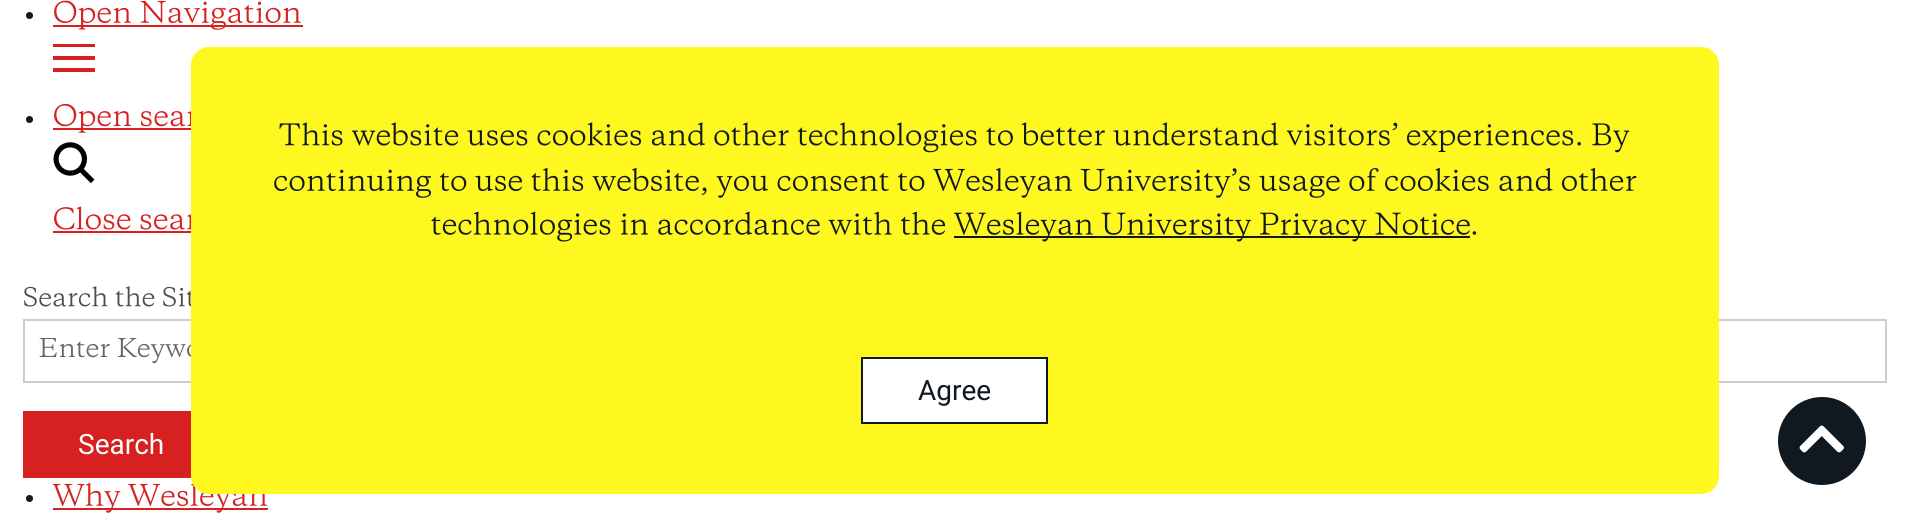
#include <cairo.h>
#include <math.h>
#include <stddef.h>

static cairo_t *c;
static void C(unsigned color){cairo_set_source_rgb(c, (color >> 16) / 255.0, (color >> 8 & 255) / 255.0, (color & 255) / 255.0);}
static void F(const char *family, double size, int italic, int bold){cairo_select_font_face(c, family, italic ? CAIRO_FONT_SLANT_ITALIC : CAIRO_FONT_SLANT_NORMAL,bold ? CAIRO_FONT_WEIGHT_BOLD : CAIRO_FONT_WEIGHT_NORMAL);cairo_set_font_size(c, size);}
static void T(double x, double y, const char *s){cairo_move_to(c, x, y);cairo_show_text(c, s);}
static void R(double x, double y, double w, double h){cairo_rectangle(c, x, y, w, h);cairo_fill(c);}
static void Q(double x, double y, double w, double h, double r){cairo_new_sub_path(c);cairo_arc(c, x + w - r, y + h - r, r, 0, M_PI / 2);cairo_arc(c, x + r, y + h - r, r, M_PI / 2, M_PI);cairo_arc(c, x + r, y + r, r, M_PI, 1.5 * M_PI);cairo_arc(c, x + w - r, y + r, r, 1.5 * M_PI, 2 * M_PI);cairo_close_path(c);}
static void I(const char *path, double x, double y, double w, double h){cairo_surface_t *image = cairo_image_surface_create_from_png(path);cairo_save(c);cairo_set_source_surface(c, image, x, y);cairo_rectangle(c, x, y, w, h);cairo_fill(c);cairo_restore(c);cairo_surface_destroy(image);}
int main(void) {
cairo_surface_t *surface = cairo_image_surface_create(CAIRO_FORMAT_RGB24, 1909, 528);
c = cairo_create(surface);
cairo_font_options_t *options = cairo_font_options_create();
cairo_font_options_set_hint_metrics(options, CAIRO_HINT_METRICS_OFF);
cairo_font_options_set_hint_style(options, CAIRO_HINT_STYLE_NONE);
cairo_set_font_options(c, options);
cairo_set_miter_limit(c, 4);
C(0xffffff);
cairo_paint(c);
cairo_rectangle(c,24,320,1862,62);
C(0xcccccc);
cairo_stroke(c);
C(0xd72121);
R(23,411,169,67);
R(53,508,215,2);
I("12.png",52,483,216,30);
C(0xfff720);
Q(191,47,1528,447,18);
cairo_fill(c);
I("1.png",279,122,1351,31);
I("2.png",274,168,1363,30);
I("3.png",431,211,515,31);
C(0x101820);
R(954,236,516,2);
I("4.png",954,211,516,31);
I("5.png",1472,231,5,4);
C(0xffffff);
cairo_rectangle(c,862,358,185,65);
cairo_fill_preserve(c);
C(0x101820);
cairo_stroke(c);
F("Roboto",28,0,0);
T(918,400,"Agree");
cairo_new_path(c);
cairo_arc(c,29.5,15.5,3.5,0,2 * M_PI);
cairo_fill(c);
C(0xd72121);
R(53,25,250,2);
I("6.png",54,0,247,30);
R(53,44,42,3);
cairo_save(c);
cairo_rectangle(c,53,39,42,33);
cairo_clip(c);
cairo_new_path(c);
cairo_move_to(c,88,56);
cairo_line_to(c,52,56);
cairo_line_to(c,52,60);
cairo_line_to(c,103,60);
cairo_line_to(c,103,56);
cairo_close_path(c);
cairo_fill(c);
cairo_restore(c);
R(53,68,42,4);
C(0x101820);
cairo_arc(c,29.5,119.5,3.5,0,2 * M_PI);
cairo_fill(c);
C(0xd72121);
R(53,128,138,2);
I("7.png",54,103,137,30);
I("8.png",53,142,42,42);
I("9.png",54,206,137,24);
R(53,231,138,2);
I("10.png",24,286,167,21);
I("11.png",39,338,152,26);
C(0xffffff);
T(78,454,"Search");
C(0x101820);
cairo_new_path(c);
cairo_arc(c,29.5,498.5,3.5,0,2 * M_PI);
cairo_fill(c);
cairo_arc(c,1822,441,44,0,2 * M_PI);
cairo_fill(c);
I("13.png",1799,425,45,28);
cairo_surface_write_to_png(surface, "o.png");
cairo_font_options_destroy(options);
cairo_destroy(c);
cairo_surface_destroy(surface);
return 0;
}
